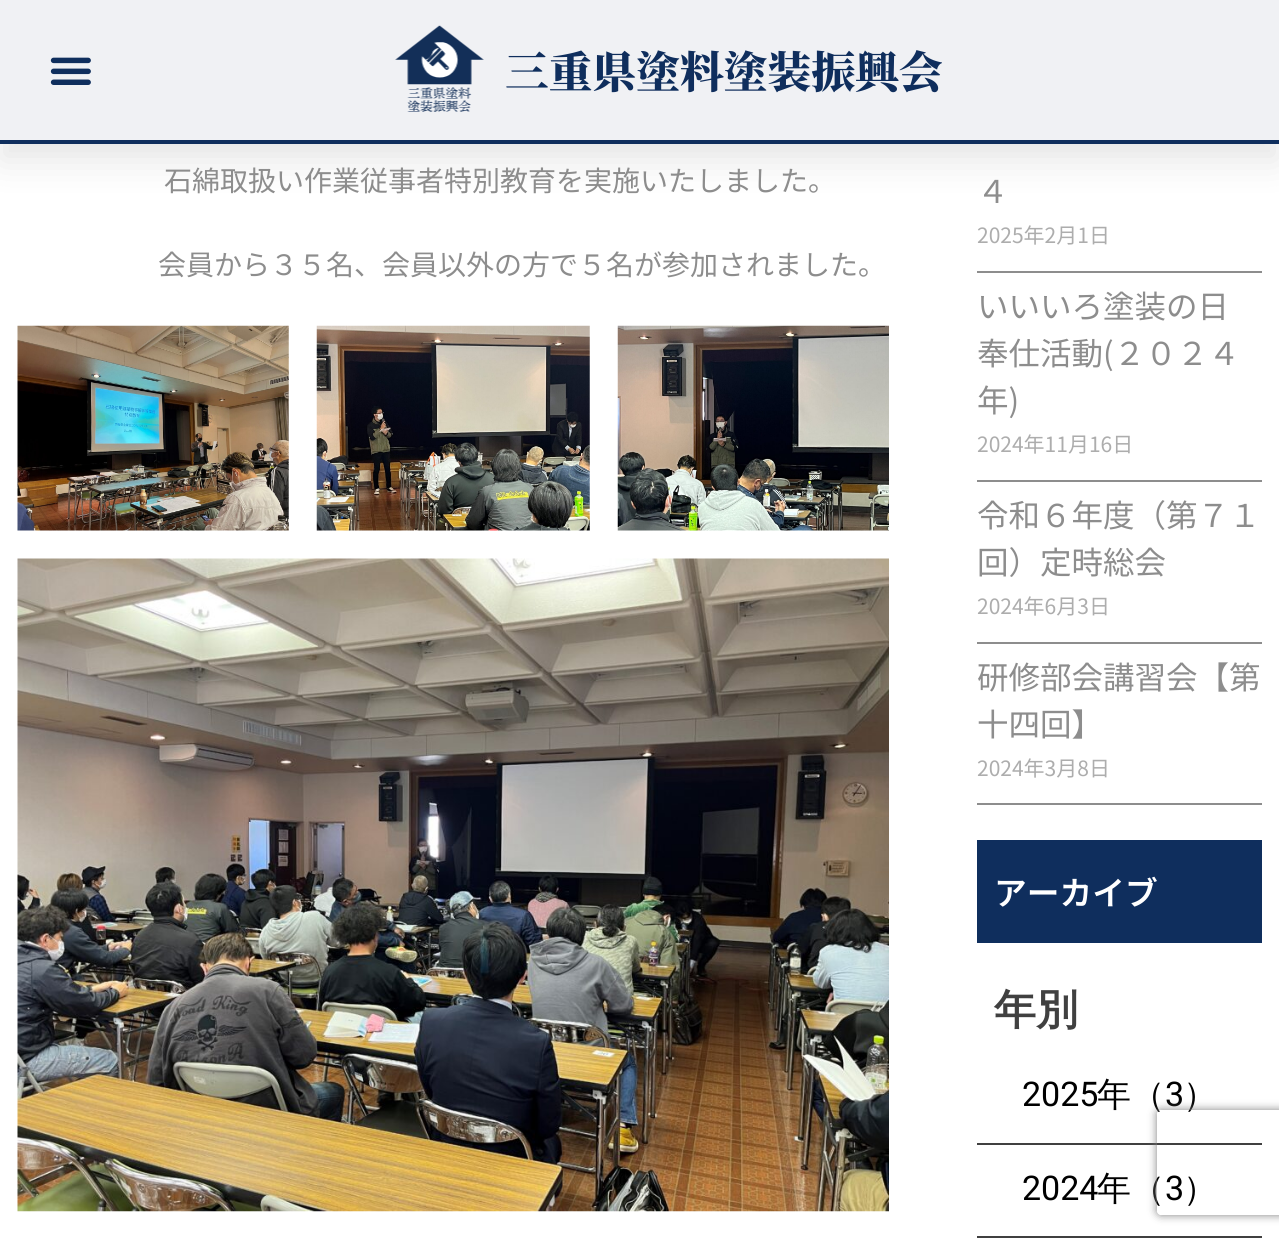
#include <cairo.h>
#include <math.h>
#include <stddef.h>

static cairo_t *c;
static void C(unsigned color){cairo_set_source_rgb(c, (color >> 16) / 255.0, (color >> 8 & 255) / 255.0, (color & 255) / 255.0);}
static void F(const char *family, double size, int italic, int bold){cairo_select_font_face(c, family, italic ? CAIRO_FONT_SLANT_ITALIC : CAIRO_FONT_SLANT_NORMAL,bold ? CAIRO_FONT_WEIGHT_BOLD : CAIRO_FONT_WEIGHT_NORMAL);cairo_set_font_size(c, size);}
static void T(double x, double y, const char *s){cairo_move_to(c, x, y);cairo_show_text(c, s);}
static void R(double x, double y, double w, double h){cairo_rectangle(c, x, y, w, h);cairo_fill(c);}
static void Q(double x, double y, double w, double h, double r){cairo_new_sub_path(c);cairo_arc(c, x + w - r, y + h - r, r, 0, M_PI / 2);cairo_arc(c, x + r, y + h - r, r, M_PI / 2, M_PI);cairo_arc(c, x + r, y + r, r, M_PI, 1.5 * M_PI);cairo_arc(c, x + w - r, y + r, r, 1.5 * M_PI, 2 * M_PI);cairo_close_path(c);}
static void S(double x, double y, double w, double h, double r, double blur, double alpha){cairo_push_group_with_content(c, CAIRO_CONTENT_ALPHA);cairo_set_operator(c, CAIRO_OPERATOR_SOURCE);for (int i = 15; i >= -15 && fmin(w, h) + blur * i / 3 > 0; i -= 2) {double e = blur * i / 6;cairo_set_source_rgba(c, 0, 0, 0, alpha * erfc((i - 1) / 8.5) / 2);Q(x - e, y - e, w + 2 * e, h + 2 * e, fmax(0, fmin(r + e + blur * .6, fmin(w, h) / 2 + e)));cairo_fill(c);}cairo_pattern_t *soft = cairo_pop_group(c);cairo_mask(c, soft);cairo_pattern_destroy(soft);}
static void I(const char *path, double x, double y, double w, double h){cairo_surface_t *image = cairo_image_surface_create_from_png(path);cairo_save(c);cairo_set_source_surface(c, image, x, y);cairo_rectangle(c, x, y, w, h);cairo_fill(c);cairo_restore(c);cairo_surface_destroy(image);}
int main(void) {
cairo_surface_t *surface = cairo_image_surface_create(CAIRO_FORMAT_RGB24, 1279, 1238);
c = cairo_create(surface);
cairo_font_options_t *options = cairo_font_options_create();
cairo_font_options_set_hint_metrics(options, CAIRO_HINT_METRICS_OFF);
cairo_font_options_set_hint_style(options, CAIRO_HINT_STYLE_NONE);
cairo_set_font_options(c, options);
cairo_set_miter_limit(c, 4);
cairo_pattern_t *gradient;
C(0xffffff);
cairo_paint(c);
C(0x000000);
S(0,18,1279,143,0,17.5,.1);
gradient = cairo_pattern_create_linear(230,-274,1049,414);
cairo_pattern_add_color_stop_rgba(gradient,1,0.941,0.945,0.957,1);
cairo_pattern_add_color_stop_rgba(gradient,1,0.059,0.18,0.365,1);
cairo_set_source(c,gradient);
cairo_pattern_destroy(gradient);
R(0,0,1279,140);
C(0x0f2e5d);
R(0,140,1279,4);
I("1.png",50,57,41,28);
I("2.png",395,25,89,87);
F("Noto Serif JP Black",43.75,0,0);
T(505,88,"三重県塗料塗装振興会");
F("Noto Sans JP",28,0,0);
C(0x8d8d8d);
T(164,191,"石綿取扱い作業従事者特別教育を実施いたしました。");
T(158,275,"会員から３５名、会員以外の方で５名が参加されました。");
I("3.png",17,325,272,206);
I("4.png",316,325,274,206);
I("5.png",617,325,272,206);
I("6.png",17,558,872,654);
R(977,271,285,2);
F("Noto Sans JP",31.5,0,0);
T(977,203,"４");
F("Noto Sans JP",21,0,0);
C(0xadadad);
T(977,243,"2025年2月1日");
C(0x8d8d8d);
R(977,480,285,2);
F("Noto Sans JP",31.5,0,0);
T(977,318,"いいいろ塗装の日");
T(977,365,"奉仕活動(２０２４");
T(977,412,"年)");
F("Noto Sans JP",21,0,0);
C(0xadadad);
T(977,452,"2024年11月16日");
C(0x8d8d8d);
R(977,642,285,2);
F("Noto Sans JP",31.5,0,0);
T(977,527,"令和６年度（第７１");
T(977,574,"回）定時総会");
F("Noto Sans JP",21,0,0);
C(0xadadad);
T(977,614,"2024年6月3日");
C(0x8d8d8d);
R(977,803,285,2);
F("Noto Sans JP",31.5,0,0);
T(977,689,"研修部会講習会【第");
T(977,736,"十四回】");
F("Noto Sans JP",21,0,0);
C(0xadadad);
T(977,776,"2024年3月8日");
C(0x0f2e5d);
R(977,840,285,103);
F("Noto Sans JP SemiBold",32.75,0,0);
C(0xffffff);
T(994,905,"アーカイブ");
F("WenQuanYi Zen Hei",42,0,1);
C(0x404040);
T(994,1024,"年別");
R(977,1143,285,2);
F("Roboto",34,0,0);
C(0x000000);
T(1022,1106,"2025");
F("WenQuanYi Zen Hei Medium",34,0,0);
T(1097,1106,"年（");
F("Roboto",34,0,0);
T(1165,1106,"3");
F("WenQuanYi Zen Hei Medium",34,0,0);
T(1183,1106,"）");
C(0x404040);
R(977,1236,285,2);
F("Roboto",34,0,0);
C(0x000000);
T(1022,1200,"2024");
F("WenQuanYi Zen Hei Medium",34,0,0);
T(1097,1200,"年（");
F("Roboto",34,0,0);
T(1165,1200,"3");
F("WenQuanYi Zen Hei Medium",34,0,0);
T(1183,1200,"）");
cairo_save(c);
cairo_set_fill_rule(c,CAIRO_FILL_RULE_EVEN_ODD);
cairo_new_path(c);
cairo_move_to(c,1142,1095);
cairo_line_to(c,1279,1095);
cairo_line_to(c,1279,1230);
cairo_line_to(c,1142,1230);
cairo_close_path(c);
cairo_move_to(c,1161,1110);
cairo_line_to(c,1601,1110);
cairo_curve_to(c,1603,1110,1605,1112,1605,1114);
cairo_line_to(c,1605,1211);
cairo_curve_to(c,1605,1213,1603,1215,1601,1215);
cairo_line_to(c,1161,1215);
cairo_curve_to(c,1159,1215,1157,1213,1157,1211);
cairo_line_to(c,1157,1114);
cairo_curve_to(c,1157,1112,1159,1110,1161,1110);
cairo_close_path(c);
cairo_clip(c);
C(0x808080);
S(1157,1110,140,105,4,4.5,1);
cairo_restore(c);
cairo_surface_write_to_png(surface, "o.png");
cairo_font_options_destroy(options);
cairo_destroy(c);
cairo_surface_destroy(surface);
return 0;
}
